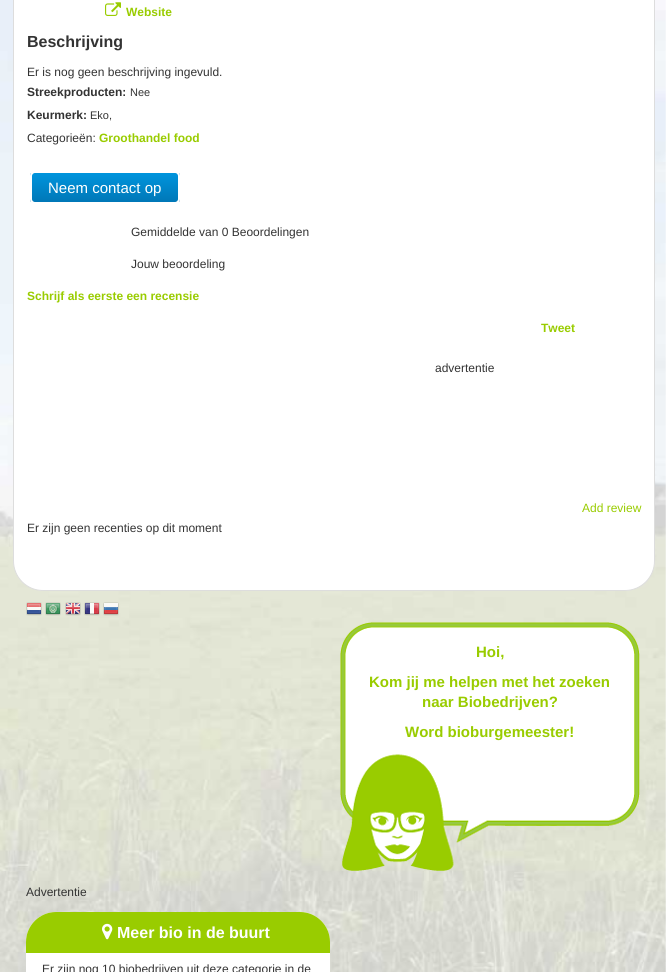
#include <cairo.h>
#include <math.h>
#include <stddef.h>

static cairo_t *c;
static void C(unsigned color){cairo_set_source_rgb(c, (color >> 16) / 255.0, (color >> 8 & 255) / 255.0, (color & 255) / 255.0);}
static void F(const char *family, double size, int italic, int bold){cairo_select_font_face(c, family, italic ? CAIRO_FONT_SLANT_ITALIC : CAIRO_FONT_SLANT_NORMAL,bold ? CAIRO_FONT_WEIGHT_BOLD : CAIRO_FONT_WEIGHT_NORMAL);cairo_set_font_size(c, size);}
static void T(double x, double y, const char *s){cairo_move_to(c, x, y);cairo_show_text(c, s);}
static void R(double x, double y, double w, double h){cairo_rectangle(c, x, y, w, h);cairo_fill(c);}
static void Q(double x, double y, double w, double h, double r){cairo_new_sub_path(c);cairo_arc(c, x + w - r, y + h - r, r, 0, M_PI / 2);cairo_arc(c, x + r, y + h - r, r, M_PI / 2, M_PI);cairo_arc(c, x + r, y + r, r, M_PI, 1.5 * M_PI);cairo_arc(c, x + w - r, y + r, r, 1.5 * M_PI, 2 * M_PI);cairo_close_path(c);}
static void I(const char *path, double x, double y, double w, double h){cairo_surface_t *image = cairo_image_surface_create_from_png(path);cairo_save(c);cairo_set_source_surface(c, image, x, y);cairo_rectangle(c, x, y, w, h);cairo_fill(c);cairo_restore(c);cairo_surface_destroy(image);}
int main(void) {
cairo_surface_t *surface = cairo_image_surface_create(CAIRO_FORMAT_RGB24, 666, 972);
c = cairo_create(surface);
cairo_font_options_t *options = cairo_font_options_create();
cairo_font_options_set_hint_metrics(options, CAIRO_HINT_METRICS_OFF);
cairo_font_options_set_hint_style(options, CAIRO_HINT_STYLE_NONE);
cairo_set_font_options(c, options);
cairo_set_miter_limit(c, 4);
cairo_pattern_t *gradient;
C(0xffffff);
cairo_paint(c);
I("1.png",0,0,666,972);
C(0xffffff);
Q(13.5,-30.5,641,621,29.5);
cairo_fill_preserve(c);
C(0xdddddd);
cairo_set_line_width(c,1);
cairo_stroke(c);
I("2.png",105,2,16,14);
F("Liberation Sans",12,0,1);
C(0x99cc00);
T(126,16,"Website");
F("Liberation Sans",16,0,1);
C(0x333333);
T(27,47,"Beschrijving");
F("Liberation Sans",12,0,0);
T(27,76,"Er is nog geen beschrijving ingevuld.");
F("Liberation Sans",12,0,1);
T(27,96,"Streekproducten:");
F("Liberation Sans",11,0,0);
T(130,96,"Nee");
F("Liberation Sans",12,0,1);
T(27,119,"Keurmerk:");
F("Liberation Sans",11,0,0);
T(90,119,"Eko,");
F("Liberation Sans",12,0,0);
T(27,142,"Categorieën:");
F("Liberation Sans",12,0,1);
C(0x99cc00);
T(99,142,"Groothandel food");
cairo_save(c);
Q(30,171,150,33,5);
cairo_clip(c);
gradient = cairo_pattern_create_linear(105,173,105,202);
cairo_pattern_add_color_stop_rgba(gradient,0,0,0.584,0.867,1);
cairo_pattern_add_color_stop_rgba(gradient,1,0,0.467,0.718,1);
cairo_set_source(c,gradient);
cairo_pattern_destroy(gradient);
R(30,173,150,29);
cairo_restore(c);
Q(31,172,148,31,4);
C(0xffffff);
cairo_set_line_width(c,2);
cairo_stroke(c);
F("Liberation Sans",15,0,0);
T(48,193,"Neem contact op");
F("Liberation Sans",12,0,0);
C(0x333333);
T(131,236,"Gemiddelde van 0 Beoordelingen");
T(131,268,"Jouw beoordeling");
F("Liberation Sans",12,0,1);
C(0x99cc00);
T(27,300,"Schrijf als eerste een recensie");
T(541,332,"Tweet");
F("Liberation Sans",12,0,0);
C(0x333333);
T(435,372,"advertentie");
C(0x99cc00);
T(582,512,"Add review");
C(0x333333);
T(27,532,"Er zijn geen recenties op dit moment");
I("3.png",26,602,16,14);
I("4.png",45,602,16,14);
I("5.png",65,602,16,14);
I("6.png",84,602,16,14);
I("7.png",103,602,16,14);
I("8.png",340,622,300,249);
F("Liberation Sans",15,0,1);
C(0x99cc00);
T(476,657,"Hoi,");
T(369,687,"Kom jij me helpen met het zoeken");
T(422,707,"naar Biobedrijven?");
T(405,737,"Word bioburgemeester!");
F("Liberation Sans",12,0,0);
C(0x333333);
T(26,896,"Advertentie");
C(0xffffff);
Q(26,912,304,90,30);
cairo_fill(c);
C(0x99cc00);
cairo_new_path(c);
cairo_move_to(c,56,912);
cairo_line_to(c,300,912);
cairo_curve_to(c,316.5,912,330,925.5,330,942);
cairo_line_to(c,330,953);
cairo_line_to(c,26,953);
cairo_line_to(c,26,942);
cairo_curve_to(c,26,925.5,39.5,912,56,912);
cairo_close_path(c);
cairo_fill(c);
I("9.png",102,923,11,17);
F("Liberation Sans",16,0,1);
C(0xffffff);
T(117,938,"Meer bio in de buurt");
F("Liberation Sans",12,0,0);
C(0x333333);
T(42,973,"Er zijn nog 10 biobedrijven uit deze categorie in de");
cairo_surface_write_to_png(surface, "o.png");
cairo_font_options_destroy(options);
cairo_destroy(c);
cairo_surface_destroy(surface);
return 0;
}
